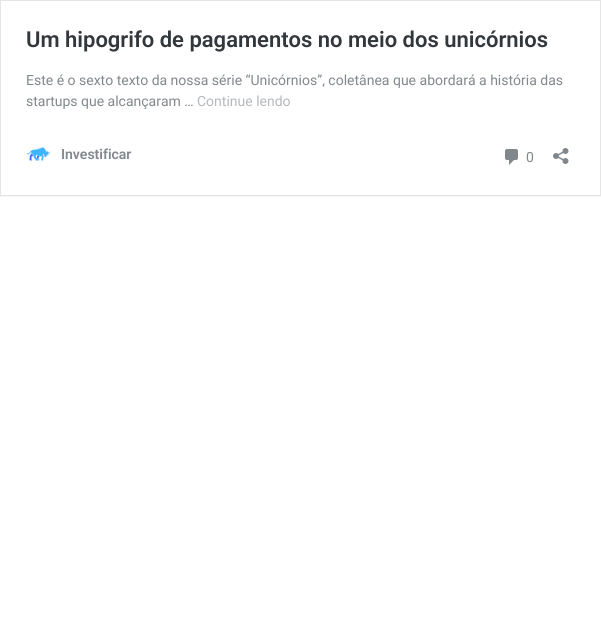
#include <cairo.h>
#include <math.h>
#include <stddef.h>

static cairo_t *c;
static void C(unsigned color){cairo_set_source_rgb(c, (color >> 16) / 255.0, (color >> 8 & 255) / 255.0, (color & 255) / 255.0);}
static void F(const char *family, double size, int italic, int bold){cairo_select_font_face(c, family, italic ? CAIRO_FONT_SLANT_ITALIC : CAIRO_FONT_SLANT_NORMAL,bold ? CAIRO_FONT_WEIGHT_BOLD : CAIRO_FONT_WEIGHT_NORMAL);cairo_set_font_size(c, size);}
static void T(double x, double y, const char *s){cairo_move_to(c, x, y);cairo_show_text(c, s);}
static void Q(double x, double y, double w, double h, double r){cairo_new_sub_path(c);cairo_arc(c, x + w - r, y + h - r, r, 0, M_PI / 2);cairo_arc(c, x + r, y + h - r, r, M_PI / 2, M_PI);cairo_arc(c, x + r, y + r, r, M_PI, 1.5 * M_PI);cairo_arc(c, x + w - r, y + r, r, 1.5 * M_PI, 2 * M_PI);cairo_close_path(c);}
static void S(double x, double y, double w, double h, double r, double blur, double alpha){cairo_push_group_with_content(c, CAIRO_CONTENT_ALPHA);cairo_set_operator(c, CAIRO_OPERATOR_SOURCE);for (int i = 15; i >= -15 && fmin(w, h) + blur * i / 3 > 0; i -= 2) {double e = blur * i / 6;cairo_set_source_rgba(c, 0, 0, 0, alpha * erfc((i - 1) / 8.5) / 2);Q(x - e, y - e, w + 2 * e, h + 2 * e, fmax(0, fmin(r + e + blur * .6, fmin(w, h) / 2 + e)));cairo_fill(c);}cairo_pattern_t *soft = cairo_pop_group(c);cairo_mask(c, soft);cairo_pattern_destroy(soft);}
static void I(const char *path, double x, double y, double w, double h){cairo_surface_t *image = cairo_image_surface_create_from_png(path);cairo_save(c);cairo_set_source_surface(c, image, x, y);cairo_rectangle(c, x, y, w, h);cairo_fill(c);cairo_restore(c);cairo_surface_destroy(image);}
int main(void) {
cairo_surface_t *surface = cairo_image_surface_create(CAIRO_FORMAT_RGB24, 601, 620);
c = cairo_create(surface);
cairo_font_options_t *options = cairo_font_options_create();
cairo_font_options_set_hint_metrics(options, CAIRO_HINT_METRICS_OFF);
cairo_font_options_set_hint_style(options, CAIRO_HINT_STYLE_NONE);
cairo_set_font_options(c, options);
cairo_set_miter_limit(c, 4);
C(0xffffff);
cairo_paint(c);
cairo_save(c);
cairo_rectangle(c,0,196,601,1);
cairo_clip(c);
C(0x000000);
S(0,1,601,196,0,.5,.05);
cairo_restore(c);
cairo_rectangle(c,.5,.5,600,195);
C(0xe5e5e5);
cairo_set_line_width(c,1);
cairo_stroke(c);
F("Roboto SemiBold",22,0,0);
C(0x32373c);
T(26,47,"Um hipogrifo de pagamentos no meio dos unicórnios");
F("Roboto",14,0,0);
C(0x82878c);
T(26,85,"Este é o sexto texto da nossa série “Unicórnios”, coletânea que abordará a história das");
T(26,106,"startups que alcançaram …");
C(0xb4b9be);
T(197,106,"Continue lendo");
I("1.png",26,147,25,14);
F("Roboto SemiBold",14,0,0);
C(0x82878c);
T(61,159,"Investificar");
I("2.png",505,149,13,16);
F("Roboto",14,0,0);
T(526,162,"0");
I("3.png",553,148,16,16);
cairo_surface_write_to_png(surface, "o.png");
cairo_font_options_destroy(options);
cairo_destroy(c);
cairo_surface_destroy(surface);
return 0;
}
